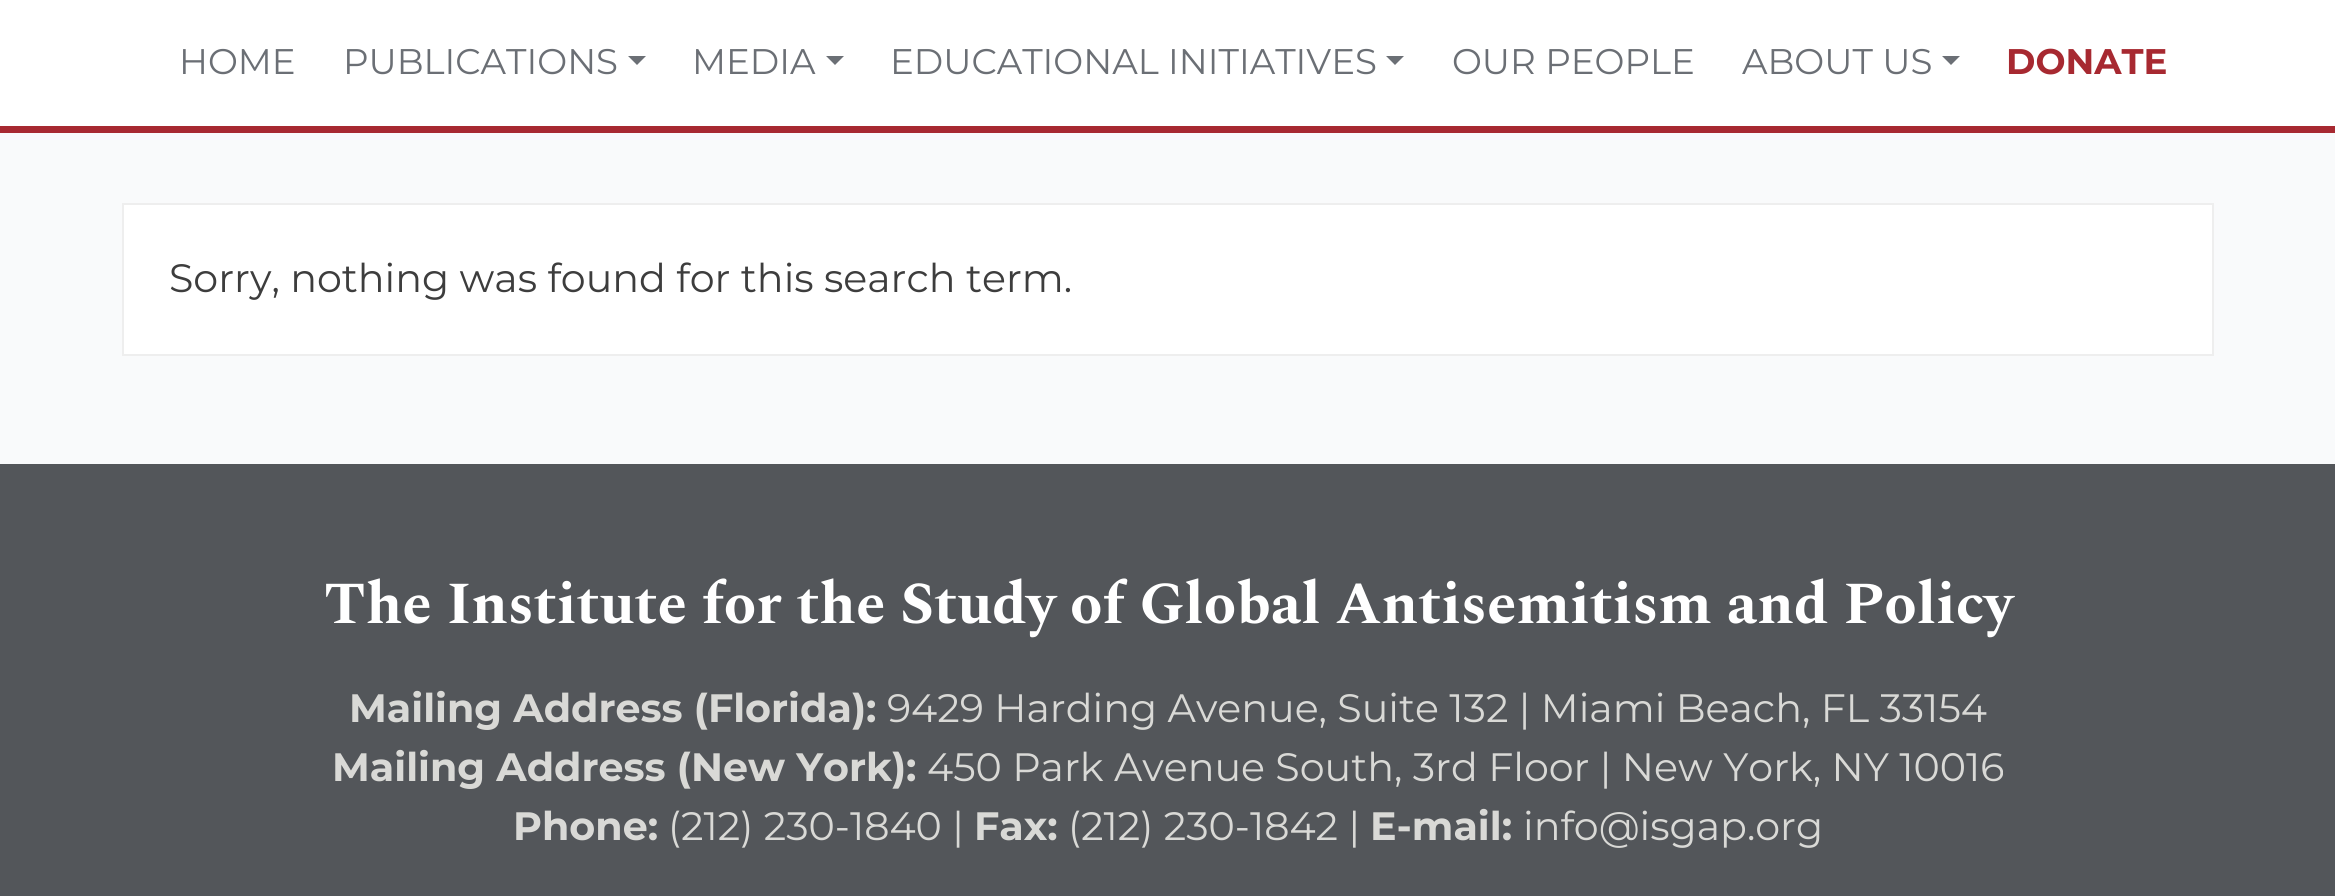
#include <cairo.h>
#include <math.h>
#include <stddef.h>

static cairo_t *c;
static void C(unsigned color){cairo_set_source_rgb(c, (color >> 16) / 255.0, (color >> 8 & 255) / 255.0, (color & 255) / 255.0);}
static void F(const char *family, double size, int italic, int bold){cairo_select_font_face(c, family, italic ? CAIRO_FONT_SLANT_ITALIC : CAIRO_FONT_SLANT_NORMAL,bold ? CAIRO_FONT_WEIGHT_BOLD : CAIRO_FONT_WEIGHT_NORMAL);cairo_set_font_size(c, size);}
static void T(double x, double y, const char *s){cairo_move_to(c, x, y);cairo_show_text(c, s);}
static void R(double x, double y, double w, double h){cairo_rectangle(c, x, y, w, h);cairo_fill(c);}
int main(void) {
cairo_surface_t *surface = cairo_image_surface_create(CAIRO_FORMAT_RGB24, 2335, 896);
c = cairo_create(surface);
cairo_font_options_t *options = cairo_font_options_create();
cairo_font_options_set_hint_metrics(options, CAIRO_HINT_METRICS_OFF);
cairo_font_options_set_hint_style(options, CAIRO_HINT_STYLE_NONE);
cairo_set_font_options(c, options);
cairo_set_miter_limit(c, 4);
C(0xf9fafb);
cairo_paint(c);
C(0xffffff);
R(0,0,2335,126);
C(0xa72931);
R(0,126,2335,7);
F("Montserrat",35.6,0,0);
C(0x6b6f75);
T(179,74,"HOME");
T(343,74,"PUBLICATIONS");
cairo_new_path(c);
cairo_move_to(c,628,56);
cairo_line_to(c,646,56);
cairo_line_to(c,637,65);
cairo_close_path(c);
cairo_fill(c);
T(692,74,"MEDIA");
cairo_new_path(c);
cairo_move_to(c,826,56);
cairo_line_to(c,844,56);
cairo_line_to(c,835,65);
cairo_close_path(c);
cairo_fill(c);
T(890,74,"EDUCATIONAL INITIATIVES");
cairo_new_path(c);
cairo_move_to(c,1386,56);
cairo_line_to(c,1404,56);
cairo_line_to(c,1395,65);
cairo_close_path(c);
cairo_fill(c);
T(1452,74,"OUR PEOPLE");
T(1742,74,"ABOUT US");
cairo_new_path(c);
cairo_move_to(c,1942,56);
cairo_line_to(c,1960,56);
cairo_line_to(c,1951,65);
cairo_close_path(c);
cairo_fill(c);
F("Montserrat",35.6,0,1);
C(0xa72931);
T(2006,74,"DONATE");
C(0xffffff);
cairo_rectangle(c,123,204,2090,151);
cairo_fill_preserve(c);
C(0xeeeeee);
cairo_stroke(c);
F("Montserrat",39.6,0,0);
C(0x3d3d3d);
T(169,292,"Sorry, nothing was found for this search term.");
C(0x53565a);
R(0,464,2335,432);
F("Spectral",59.4,0,1);
C(0xffffff);
T(324,623,"The Institute for the Study of Global Antisemitism and Policy");
F("Montserrat",39.6,0,1);
C(0xd9d9d6);
T(349,722,"Mailing Address (Florida):");
F("Montserrat",39.6,0,0);
T(887,722,"9429 Harding Avenue, Suite 132 | Miami Beach, FL 33154");
F("Montserrat",39.6,0,1);
T(332,781,"Mailing Address (New York):");
F("Montserrat",39.6,0,0);
T(927,781,"450 Park Avenue South, 3rd Floor | New York, NY 10016");
F("Montserrat",39.6,0,1);
T(513,840,"Phone:");
F("Montserrat",39.6,0,0);
T(668,840,"(212) 230-1840 |");
F("Montserrat",39.6,0,1);
T(974,840,"Fax:");
F("Montserrat",39.6,0,0);
T(1068,840,"(212) 230-1842 |");
F("Montserrat",39.6,0,1);
T(1370,840,"E-mail:");
F("Montserrat",39.6,0,0);
T(1523,840,"info@isgap.org");
cairo_surface_write_to_png(surface, "o.png");
cairo_font_options_destroy(options);
cairo_destroy(c);
cairo_surface_destroy(surface);
return 0;
}
